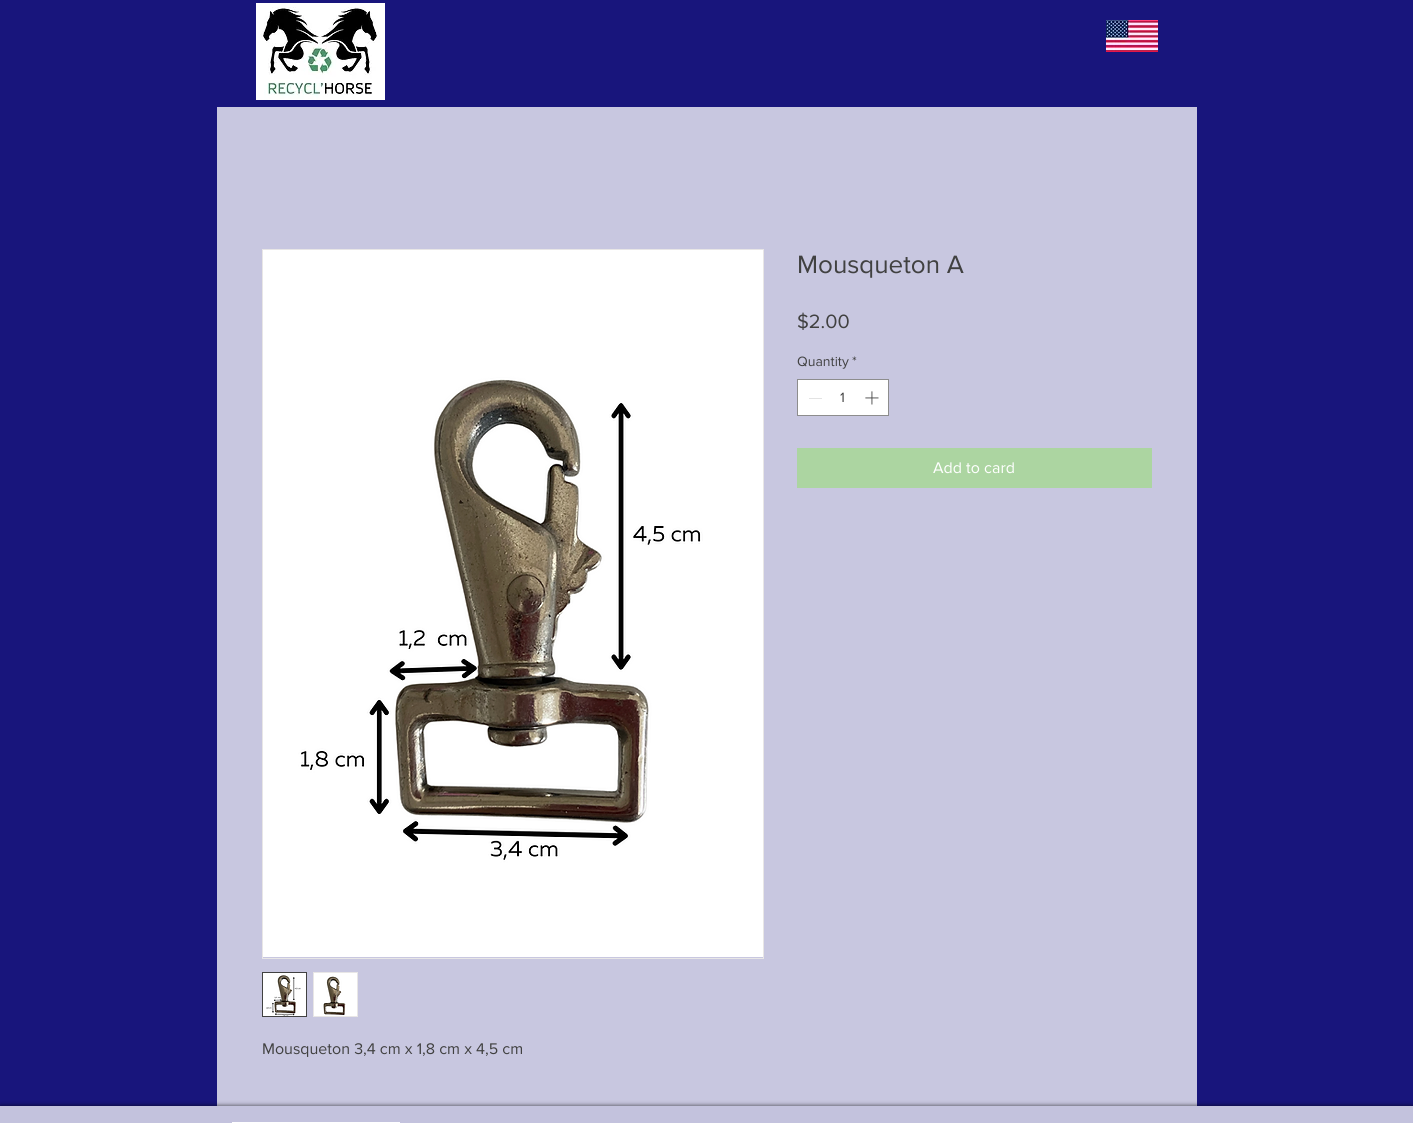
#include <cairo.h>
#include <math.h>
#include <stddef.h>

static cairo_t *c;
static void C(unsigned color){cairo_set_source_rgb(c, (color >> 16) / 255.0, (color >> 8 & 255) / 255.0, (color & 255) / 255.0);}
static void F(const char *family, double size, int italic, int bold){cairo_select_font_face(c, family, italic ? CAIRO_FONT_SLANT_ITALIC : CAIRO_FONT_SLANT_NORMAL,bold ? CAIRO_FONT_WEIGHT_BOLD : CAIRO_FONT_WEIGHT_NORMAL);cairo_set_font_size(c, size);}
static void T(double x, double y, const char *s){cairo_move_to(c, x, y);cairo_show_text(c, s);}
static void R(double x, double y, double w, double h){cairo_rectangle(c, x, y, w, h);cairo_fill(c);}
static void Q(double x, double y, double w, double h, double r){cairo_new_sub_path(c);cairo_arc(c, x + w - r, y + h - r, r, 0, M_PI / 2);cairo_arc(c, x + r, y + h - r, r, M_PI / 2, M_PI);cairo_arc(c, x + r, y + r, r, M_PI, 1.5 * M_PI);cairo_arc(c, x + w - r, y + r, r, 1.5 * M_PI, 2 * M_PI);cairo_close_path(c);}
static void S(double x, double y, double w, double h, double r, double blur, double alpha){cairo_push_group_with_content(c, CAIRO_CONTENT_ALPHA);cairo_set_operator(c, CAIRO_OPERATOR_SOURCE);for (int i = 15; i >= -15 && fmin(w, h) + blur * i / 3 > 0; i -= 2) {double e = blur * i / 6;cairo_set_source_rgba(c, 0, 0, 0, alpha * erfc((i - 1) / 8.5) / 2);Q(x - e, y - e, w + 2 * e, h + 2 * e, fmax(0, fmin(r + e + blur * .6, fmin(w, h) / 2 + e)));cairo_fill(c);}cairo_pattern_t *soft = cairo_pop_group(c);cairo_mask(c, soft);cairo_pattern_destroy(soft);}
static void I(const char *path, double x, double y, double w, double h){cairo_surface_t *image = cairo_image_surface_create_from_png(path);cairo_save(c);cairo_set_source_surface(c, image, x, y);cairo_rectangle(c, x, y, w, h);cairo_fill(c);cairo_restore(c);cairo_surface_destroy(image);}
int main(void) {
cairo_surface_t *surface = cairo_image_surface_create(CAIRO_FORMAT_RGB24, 1413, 1123);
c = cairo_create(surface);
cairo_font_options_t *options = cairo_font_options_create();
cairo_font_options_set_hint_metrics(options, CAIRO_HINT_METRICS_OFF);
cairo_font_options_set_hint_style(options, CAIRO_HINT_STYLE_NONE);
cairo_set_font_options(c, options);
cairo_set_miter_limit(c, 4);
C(0x18157c);
cairo_paint(c);
I("1.png",256,3,129,97);
I("2.png",1106,20,52,32);
C(0xc8c7e0);
R(217,107,980,999);
F("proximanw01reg",26,0,0);
C(0x414141);
T(797,273,"Mousqueton A");
F("proximanw01reg",20,0,0);
T(797,328,"$2.00");
F("proximanw01reg",14,0,0);
T(797,366,"Quantity");
T(852,366,"*");
C(0xffffff);
cairo_rectangle(c,797.5,379.5,91,36);
cairo_fill_preserve(c);
C(0x8d8d8d);
cairo_set_line_width(c,1);
cairo_stroke(c);
C(0xe3e3e3);
R(809,398,13,1);
C(0x414141);
T(840,402,"1");
I("3.png",865,391,14,14);
C(0xacd5a1);
R(797,448,355,40);
F("proximanw01reg",16,0,0);
C(0xffffff);
T(933,473,"Add to card");
cairo_rectangle(c,262.5,249.5,501,709);
C(0xe8e6e6);
cairo_stroke(c);
I("4.png",263,250,500,707);
cairo_rectangle(c,262.5,972.5,44,44);
C(0x414141);
cairo_stroke(c);
I("5.png",263,973,43,43);
cairo_rectangle(c,313.5,972.5,44,44);
C(0xe8e6e6);
cairo_stroke(c);
I("6.png",314,973,43,43);
C(0x414141);
T(262,1054,"Mousqueton 3,4 cm x 1,8 cm x 4,5 cm");
C(0x000000);
S(0,1106,1413,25,0,2.5,.7);
C(0xc3c2dd);
R(0,1106,1413,17);
C(0xffffff);
R(232,1122,168,1);
cairo_surface_write_to_png(surface, "o.png");
cairo_font_options_destroy(options);
cairo_destroy(c);
cairo_surface_destroy(surface);
return 0;
}
